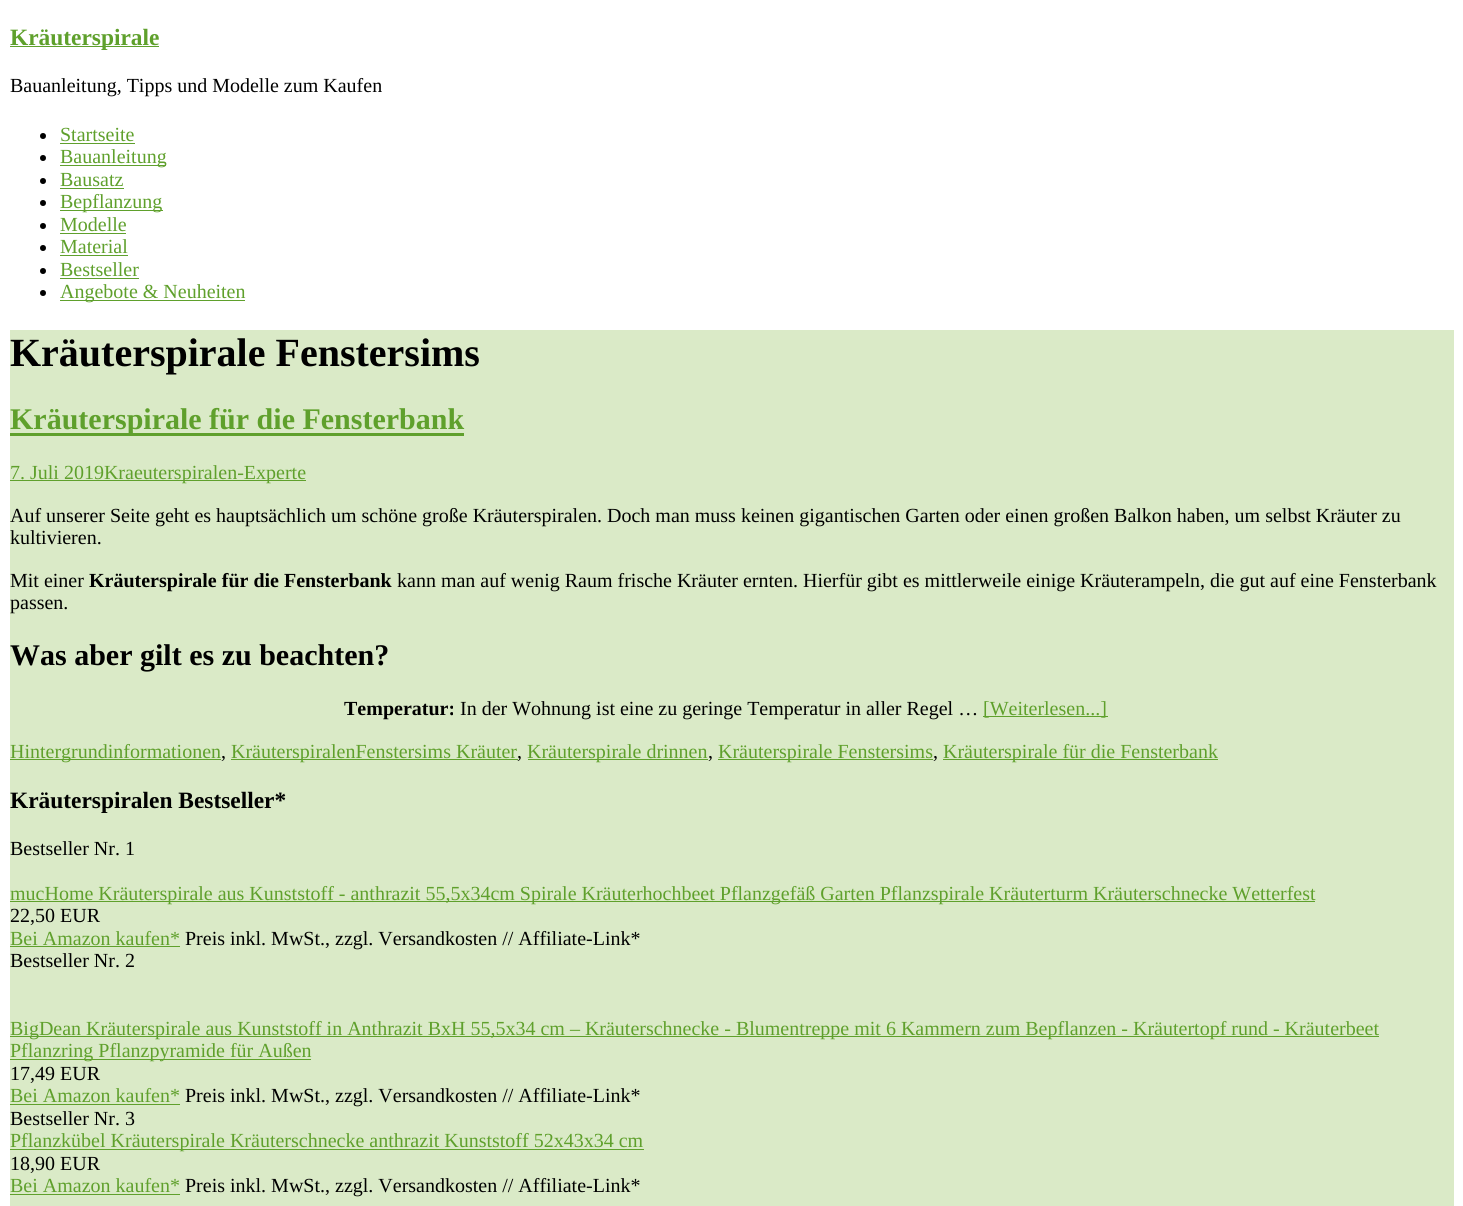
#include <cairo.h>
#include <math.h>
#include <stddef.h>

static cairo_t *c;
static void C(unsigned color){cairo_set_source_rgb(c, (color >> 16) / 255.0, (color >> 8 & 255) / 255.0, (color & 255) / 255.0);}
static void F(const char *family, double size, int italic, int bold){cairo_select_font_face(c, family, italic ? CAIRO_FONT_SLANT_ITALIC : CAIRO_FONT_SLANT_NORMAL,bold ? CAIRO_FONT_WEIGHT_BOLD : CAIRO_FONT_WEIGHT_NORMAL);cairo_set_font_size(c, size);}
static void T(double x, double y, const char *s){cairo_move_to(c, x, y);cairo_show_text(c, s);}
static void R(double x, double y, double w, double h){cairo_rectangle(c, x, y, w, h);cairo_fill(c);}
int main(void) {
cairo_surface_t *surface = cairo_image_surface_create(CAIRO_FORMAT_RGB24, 1463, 1206);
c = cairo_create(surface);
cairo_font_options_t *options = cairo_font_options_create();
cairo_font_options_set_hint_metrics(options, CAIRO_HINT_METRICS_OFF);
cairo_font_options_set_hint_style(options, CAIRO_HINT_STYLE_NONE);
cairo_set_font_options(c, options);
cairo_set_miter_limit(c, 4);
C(0xffffff);
cairo_paint(c);
C(0x5fa02c);
R(10,46,149,1);
F("Liberation Serif",23.4,0,1);
T(10,45,"Kräuterspirale");
F("Liberation Serif",20,0,0);
C(0x000000);
T(10,92,"Bauanleitung, Tipps und Modelle zum Kaufen");
cairo_new_path(c);
cairo_arc(c,43,136,3,0,2 * M_PI);
cairo_fill(c);
C(0x5fa02c);
T(60,141,"Startseite");
R(60,143,75,1);
C(0x000000);
cairo_new_path(c);
cairo_arc(c,43,158,3,0,2 * M_PI);
cairo_fill(c);
C(0x5fa02c);
R(60,165,106,1);
T(60,163,"Bauanleitung");
C(0x000000);
cairo_new_path(c);
cairo_arc(c,43,181,3,0,2 * M_PI);
cairo_fill(c);
C(0x5fa02c);
T(60,186,"Bausatz");
R(60,188,64,1);
C(0x000000);
cairo_new_path(c);
cairo_arc(c,43,203,3,0,2 * M_PI);
cairo_fill(c);
C(0x5fa02c);
R(60,210,103,1);
T(60,208,"Bepflanzung");
C(0x000000);
cairo_new_path(c);
cairo_arc(c,43,226,3,0,2 * M_PI);
cairo_fill(c);
C(0x5fa02c);
T(60,231,"Modelle");
R(60,233,66,1);
C(0x000000);
cairo_new_path(c);
cairo_arc(c,43,248,3,0,2 * M_PI);
cairo_fill(c);
C(0x5fa02c);
T(60,253,"Material");
R(60,255,68,1);
C(0x000000);
cairo_new_path(c);
cairo_arc(c,43,271,3,0,2 * M_PI);
cairo_fill(c);
C(0x5fa02c);
T(60,276,"Bestseller");
R(60,278,79,1);
C(0x000000);
cairo_new_path(c);
cairo_arc(c,43,293,3,0,2 * M_PI);
cairo_fill(c);
C(0x5fa02c);
R(60,300,185,1);
T(60,298,"Angebote & Neuheiten");
C(0xdaeac7);
R(10,330,1444,876);
F("Liberation Serif",40,0,1);
C(0x000000);
T(10,366,"Kräuterspirale Fenstersims");
C(0x5fa02c);
R(10,433,454,3);
F("Liberation Serif",30,0,1);
T(10,429,"Kräuterspirale für die Fensterbank");
R(10,480,296,1);
F("Liberation Serif",20,0,0);
T(10,479,"7. Juli 2019Kraeuterspiralen-Experte");
C(0x000000);
T(10,522,"Auf unserer Seite geht es hauptsächlich um schöne große Kräuterspiralen. Doch man muss keinen gigantischen Garten oder einen großen Balkon haben, um selbst Kräuter zu");
T(10,544,"kultivieren.");
T(10,587,"Mit einer");
F("Liberation Serif",20,0,1);
T(89,587,"Kräuterspirale für die Fensterbank");
F("Liberation Serif",20,0,0);
T(397,587,"kann man auf wenig Raum frische Kräuter ernten. Hierfür gibt es mittlerweile einige Kräuterampeln, die gut auf eine Fensterbank");
T(10,609,"passen.");
F("Liberation Serif",30,0,1);
T(10,665,"Was aber gilt es zu beachten?");
F("Liberation Serif",20,0,1);
T(344,715,"Temperatur:");
F("Liberation Serif",20,0,0);
T(460,715,"In der Wohnung ist eine zu geringe Temperatur in aller Regel …");
C(0x5fa02c);
R(983,716,125,1);
T(983,715,"[Weiterlesen...]");
R(10,759,211,1);
T(10,758,"Hintergrundinformationen");
C(0x000000);
T(221,758,",");
C(0x5fa02c);
R(231,759,124,1);
T(231,758,"KräuterspiralenFenstersims Kräuter");
R(355,759,163,1);
C(0x000000);
T(517,758,",");
C(0x5fa02c);
R(528,759,180,1);
T(527,758,"Kräuterspirale drinnen");
C(0x000000);
T(708,758,",");
C(0x5fa02c);
R(718,759,215,1);
T(718,758,"Kräuterspirale Fenstersims");
C(0x000000);
T(933,758,",");
C(0x5fa02c);
R(943,759,275,1);
T(943,758,"Kräuterspirale für die Fensterbank");
F("Liberation Serif",23.4,0,1);
C(0x000000);
T(10,808,"Kräuterspiralen Bestseller*");
F("Liberation Serif",20,0,0);
T(10,855,"Bestseller Nr. 1");
C(0x5fa02c);
R(10,901,1305,1);
T(10,900,"mucHome Kräuterspirale aus Kunststoff - anthrazit 55,5x34cm Spirale Kräuterhochbeet Pflanzgefäß Garten Pflanzspirale Kräuterturm Kräuterschnecke Wetterfest");
C(0x000000);
T(10,922,"22,50 EUR");
C(0x5fa02c);
T(10,945,"Bei Amazon kaufen*");
R(10,946,170,1);
C(0x000000);
T(185,945,"Preis inkl. MwSt., zzgl. Versandkosten // Affiliate-Link*");
T(10,967,"Bestseller Nr. 2");
C(0x5fa02c);
R(10,1036,1369,1);
T(10,1035,"BigDean Kräuterspirale aus Kunststoff in Anthrazit BxH 55,5x34 cm – Kräuterschnecke - Blumentreppe mit 6 Kammern zum Bepflanzen - Kräutertopf rund - Kräuterbeet");
R(10,1059,301,1);
T(10,1057,"Pflanzring Pflanzpyramide für Außen");
C(0x000000);
T(10,1080,"17,49 EUR");
C(0x5fa02c);
T(10,1102,"Bei Amazon kaufen*");
R(10,1104,170,1);
C(0x000000);
T(185,1102,"Preis inkl. MwSt., zzgl. Versandkosten // Affiliate-Link*");
T(10,1125,"Bestseller Nr. 3");
C(0x5fa02c);
R(10,1149,634,1);
T(10,1147,"Pflanzkübel Kräuterspirale Kräuterschnecke anthrazit Kunststoff 52x43x34 cm");
C(0x000000);
T(10,1170,"18,90 EUR");
C(0x5fa02c);
T(10,1192,"Bei Amazon kaufen*");
R(10,1194,170,1);
C(0x000000);
T(185,1192,"Preis inkl. MwSt., zzgl. Versandkosten // Affiliate-Link*");
cairo_surface_write_to_png(surface, "o.png");
cairo_font_options_destroy(options);
cairo_destroy(c);
cairo_surface_destroy(surface);
return 0;
}
